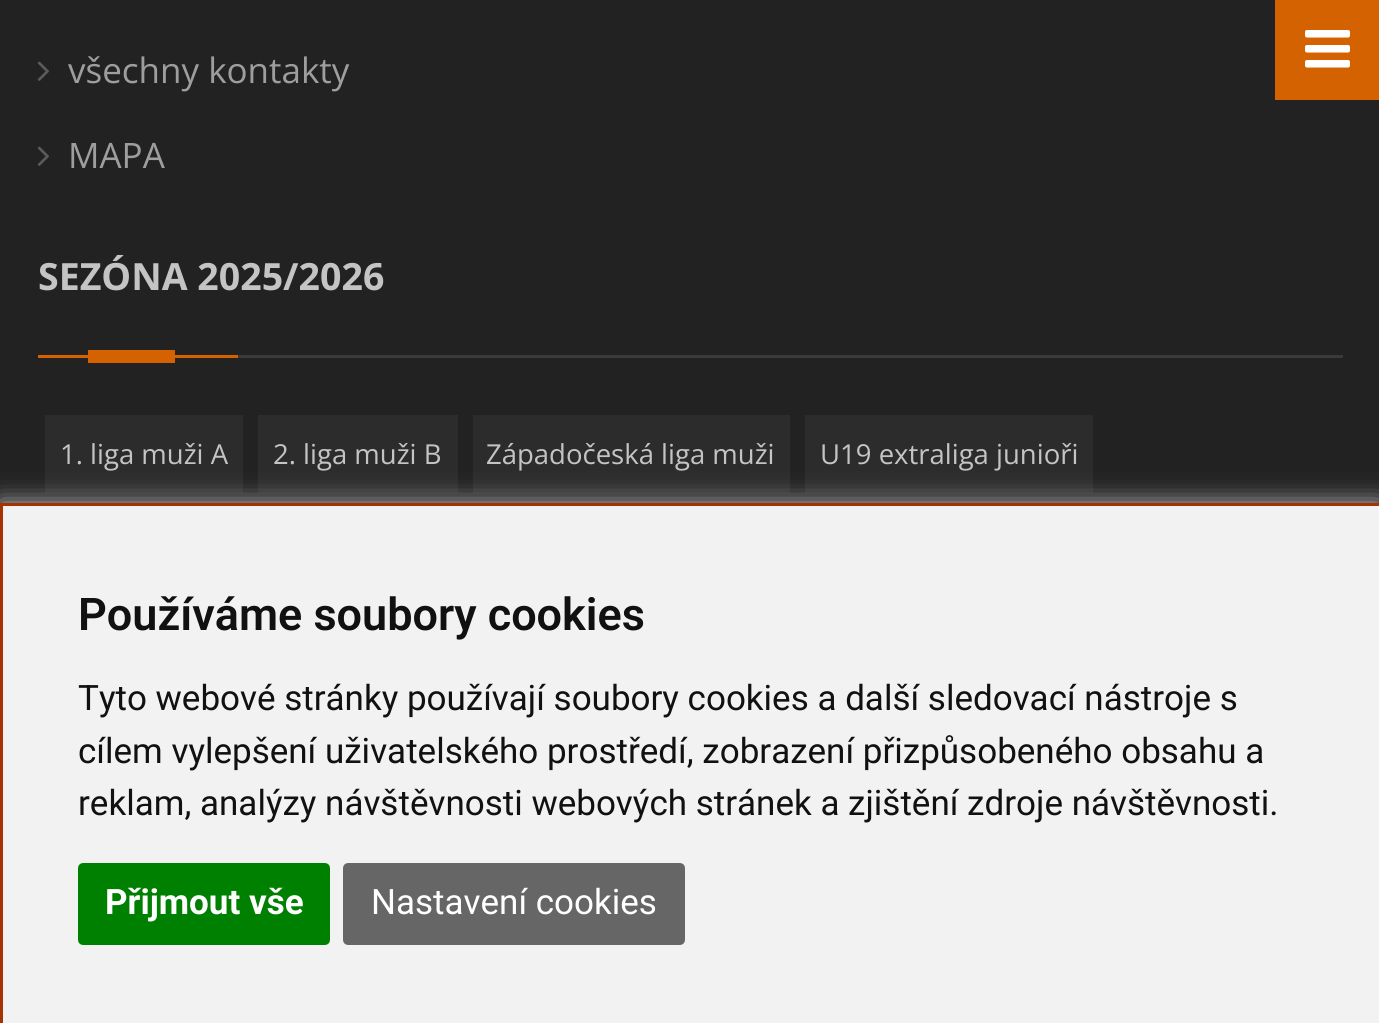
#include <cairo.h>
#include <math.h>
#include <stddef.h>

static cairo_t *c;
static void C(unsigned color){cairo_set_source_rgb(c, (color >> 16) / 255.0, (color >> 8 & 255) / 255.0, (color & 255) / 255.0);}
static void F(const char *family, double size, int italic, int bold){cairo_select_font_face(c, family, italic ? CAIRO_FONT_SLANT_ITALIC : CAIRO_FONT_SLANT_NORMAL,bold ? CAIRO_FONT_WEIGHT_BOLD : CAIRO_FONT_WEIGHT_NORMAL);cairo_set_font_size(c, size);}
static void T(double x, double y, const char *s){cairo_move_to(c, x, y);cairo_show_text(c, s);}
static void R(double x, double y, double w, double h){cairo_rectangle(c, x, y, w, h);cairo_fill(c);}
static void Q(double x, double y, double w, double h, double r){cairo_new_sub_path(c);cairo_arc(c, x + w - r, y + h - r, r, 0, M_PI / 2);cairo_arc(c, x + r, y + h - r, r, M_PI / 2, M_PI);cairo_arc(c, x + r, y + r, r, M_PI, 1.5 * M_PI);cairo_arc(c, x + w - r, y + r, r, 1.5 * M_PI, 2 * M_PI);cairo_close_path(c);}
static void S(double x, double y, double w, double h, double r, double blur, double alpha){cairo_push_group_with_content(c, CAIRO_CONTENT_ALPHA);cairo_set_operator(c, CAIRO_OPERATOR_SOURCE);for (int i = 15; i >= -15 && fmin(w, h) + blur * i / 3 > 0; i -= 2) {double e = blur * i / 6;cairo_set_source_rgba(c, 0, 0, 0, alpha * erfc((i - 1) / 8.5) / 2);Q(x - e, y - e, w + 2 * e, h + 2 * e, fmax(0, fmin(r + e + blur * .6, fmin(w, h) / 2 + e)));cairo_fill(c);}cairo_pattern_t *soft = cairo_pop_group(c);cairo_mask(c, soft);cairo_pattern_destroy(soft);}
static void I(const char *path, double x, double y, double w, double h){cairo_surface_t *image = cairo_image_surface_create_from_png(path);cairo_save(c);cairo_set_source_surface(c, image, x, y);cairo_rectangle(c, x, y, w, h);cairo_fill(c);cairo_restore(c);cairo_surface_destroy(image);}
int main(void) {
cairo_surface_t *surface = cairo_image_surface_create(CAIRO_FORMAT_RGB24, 1379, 1023);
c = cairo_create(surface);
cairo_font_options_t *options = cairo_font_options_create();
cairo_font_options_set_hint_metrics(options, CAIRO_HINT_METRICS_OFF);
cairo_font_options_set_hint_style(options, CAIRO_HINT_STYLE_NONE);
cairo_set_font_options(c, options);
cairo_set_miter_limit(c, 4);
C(0x222222);
cairo_paint(c);
I("1.png",37,61,12,20);
F("Open Sans",35,0,0);
C(0x9e9e9e);
T(68,83,"všechny kontakty");
I("1.png",37,146,12,20);
T(68,168,"MAPA");
C(0x3a3a3a);
R(238,355,1105,3);
F("Open Sans",37.5,0,1);
C(0xc4c4c4);
T(38,290,"SEZÓNA 2025/2026");
C(0xd56200);
R(88,350,87,13);
R(38,355,200,3);
C(0x2c2c2c);
R(45,415,198,78);
F("Open Sans",27.5,0,0);
C(0xc4c4c4);
T(60,464,"1. liga muži A");
C(0x2c2c2c);
R(258,415,200,78);
C(0xc4c4c4);
T(273,464,"2. liga muži B");
C(0x2c2c2c);
R(473,415,317,78);
C(0xc4c4c4);
T(486,464,"Západočeská liga muži");
C(0x2c2c2c);
R(805,415,288,78);
C(0xc4c4c4);
T(820,464,"U19 extraliga junioři");
C(0xd56200);
R(1275,0,104,100);
I("2.png",1305,30,45,38);
C(0xc0c0c0);
S(0,503,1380,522,0,12.5,1);
C(0xf2f2f2);
R(3,506,1376,517);
C(0xa53200);
R(0,503,1379,3);
R(0,503,3,520);
F("Roboto SemiBold",45,0,0);
C(0x111111);
T(78,630,"Používáme soubory cookies");
F("Roboto",35,0,0);
T(78,710,"Tyto webové stránky používají soubory cookies a další sledovací nástroje s");
T(78,763,"cílem vylepšení uživatelského prostředí, zobrazení přizpůsobeného obsahu a");
T(78,815,"reklam, analýzy návštěvnosti webových stránek a zjištění zdroje návštěvnosti.");
C(0x008000);
Q(79.5,864.5,249,79,3.5);
cairo_fill_preserve(c);
cairo_set_line_width(c,3);
cairo_stroke(c);
F("Roboto",35,0,1);
C(0xffffff);
T(105,914,"Přijmout vše");
C(0x666666);
Q(344.5,864.5,339,79,3.5);
cairo_fill_preserve(c);
cairo_stroke(c);
F("Roboto",35,0,0);
C(0xffffff);
T(371,914,"Nastavení cookies");
cairo_surface_write_to_png(surface, "o.png");
cairo_font_options_destroy(options);
cairo_destroy(c);
cairo_surface_destroy(surface);
return 0;
}
